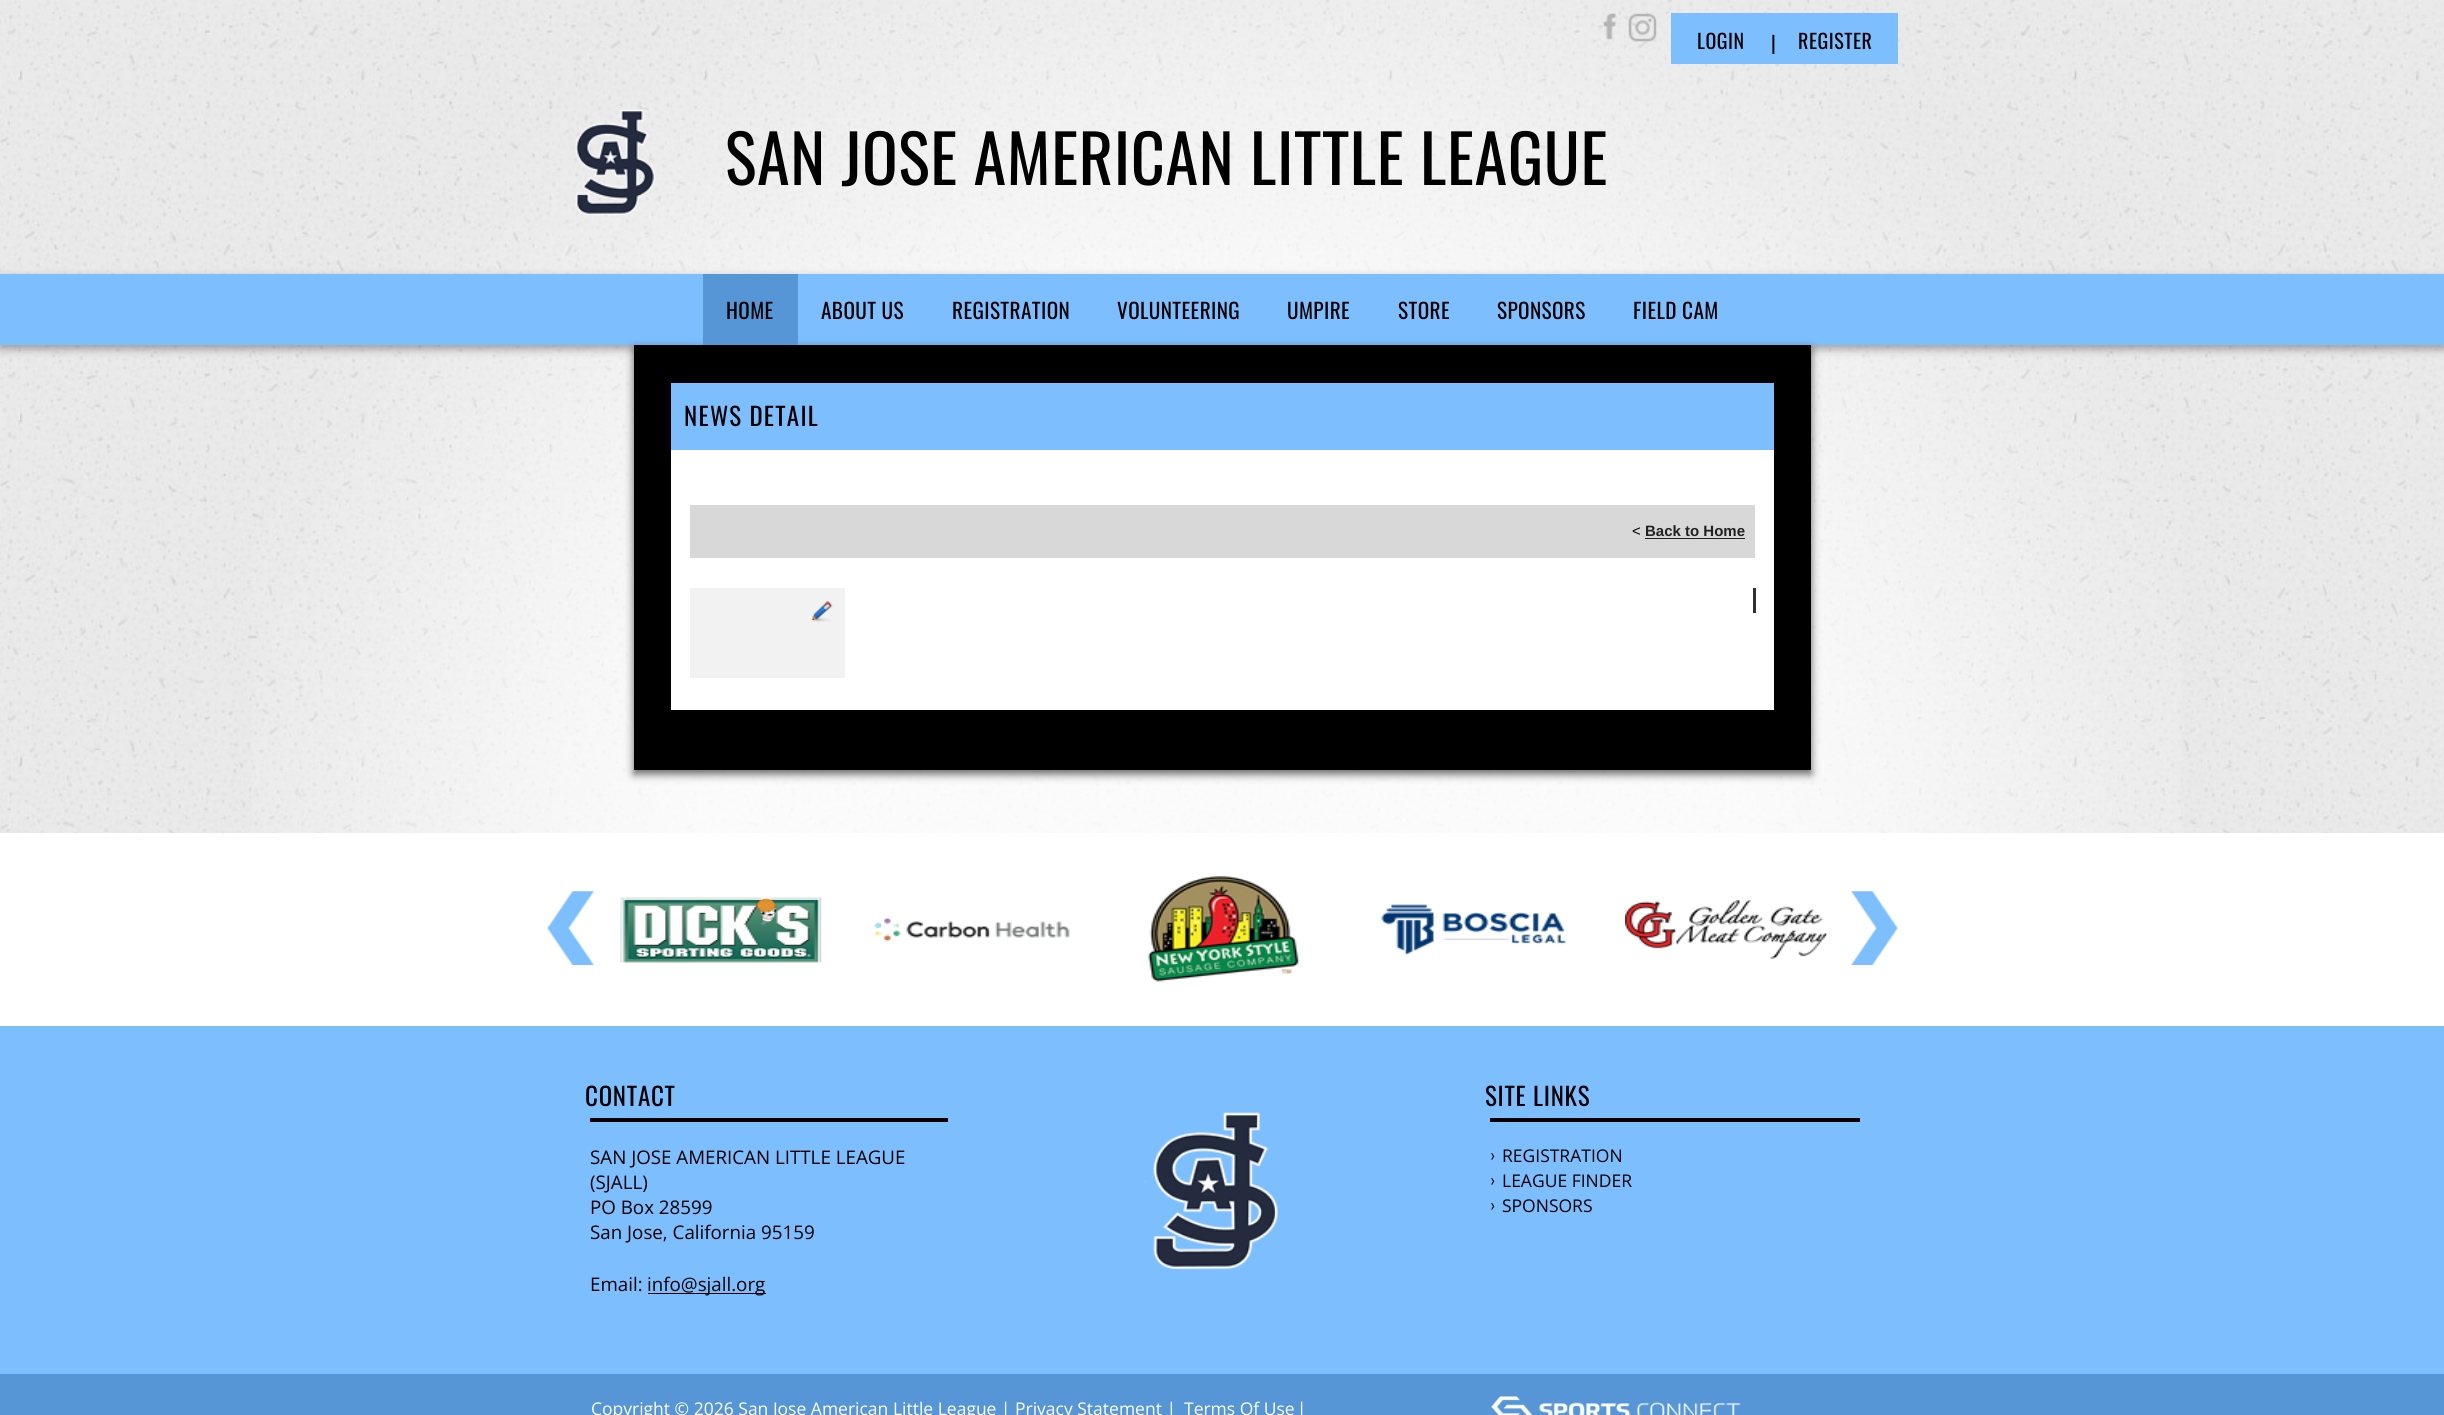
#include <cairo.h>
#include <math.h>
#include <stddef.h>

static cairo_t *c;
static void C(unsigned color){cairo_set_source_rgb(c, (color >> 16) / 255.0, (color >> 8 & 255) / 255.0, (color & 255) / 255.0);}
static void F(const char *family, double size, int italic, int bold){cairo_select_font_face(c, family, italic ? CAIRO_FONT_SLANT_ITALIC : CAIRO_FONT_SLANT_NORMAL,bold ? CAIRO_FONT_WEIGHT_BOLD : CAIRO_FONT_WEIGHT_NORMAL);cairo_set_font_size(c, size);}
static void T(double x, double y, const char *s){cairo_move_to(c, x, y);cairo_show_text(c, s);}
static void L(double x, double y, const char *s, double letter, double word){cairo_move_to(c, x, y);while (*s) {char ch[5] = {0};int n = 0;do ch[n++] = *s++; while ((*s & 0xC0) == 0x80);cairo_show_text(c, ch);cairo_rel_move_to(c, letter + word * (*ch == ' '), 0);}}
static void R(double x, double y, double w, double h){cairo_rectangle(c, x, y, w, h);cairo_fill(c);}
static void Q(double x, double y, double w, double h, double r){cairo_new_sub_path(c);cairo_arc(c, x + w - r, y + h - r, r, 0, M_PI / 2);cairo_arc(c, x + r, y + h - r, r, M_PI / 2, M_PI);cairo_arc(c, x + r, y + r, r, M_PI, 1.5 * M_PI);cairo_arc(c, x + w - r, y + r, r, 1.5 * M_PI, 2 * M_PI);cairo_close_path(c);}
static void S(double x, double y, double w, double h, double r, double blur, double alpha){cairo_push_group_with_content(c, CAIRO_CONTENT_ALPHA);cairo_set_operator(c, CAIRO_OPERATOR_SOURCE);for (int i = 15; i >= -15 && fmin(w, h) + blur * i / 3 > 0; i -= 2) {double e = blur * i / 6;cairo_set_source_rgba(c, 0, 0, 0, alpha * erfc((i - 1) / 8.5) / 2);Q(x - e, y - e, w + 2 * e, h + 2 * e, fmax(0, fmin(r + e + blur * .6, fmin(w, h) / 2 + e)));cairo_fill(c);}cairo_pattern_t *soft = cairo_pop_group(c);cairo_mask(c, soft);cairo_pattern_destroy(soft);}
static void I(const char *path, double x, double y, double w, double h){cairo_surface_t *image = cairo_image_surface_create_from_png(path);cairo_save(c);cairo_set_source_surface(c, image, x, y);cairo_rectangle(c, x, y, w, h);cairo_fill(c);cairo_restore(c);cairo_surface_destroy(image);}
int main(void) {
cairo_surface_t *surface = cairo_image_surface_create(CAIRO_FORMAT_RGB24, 2444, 1415);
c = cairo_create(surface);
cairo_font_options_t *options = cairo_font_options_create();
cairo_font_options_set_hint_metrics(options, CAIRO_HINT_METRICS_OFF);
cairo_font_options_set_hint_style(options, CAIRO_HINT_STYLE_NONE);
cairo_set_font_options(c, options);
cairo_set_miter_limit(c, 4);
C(0xffffff);
cairo_paint(c);
I("1.png",0,0,2444,833);
I("2.png",252,0,1929,833);
I("3.png",1603,13,14,27);
I("4.png",1628,13,29,29);
C(0x7dbeff);
R(1671,13,227,51);
F("Oswald",20,0,0);
C(0x000000);
L(1697,49,"LOGIN",.5,0);
L(1771,51,"|",.5,0);
L(1798,49,"REGISTER",.5,0);
I("5.png",575,109,80,106);
F("Oswald",66.25,0,0);
L(725,185,"SAN JOSE AMERICAN LITTLE LEAGUE",.6,0);
C(0x000000);
S(0,278,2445,71,0,4.5,.35);
C(0x7dbeff);
R(0,274,2444,71);
C(0x000000);
S(634,349,1177,425,0,4.5,.61);
C(0x5696d6);
R(703,274,95,71);
F("Oswald",21.25,0,0);
C(0x000000);
L(726,319,"HOME",.4,0);
L(821,319,"ABOUT US",.4,0);
L(952,319,"REGISTRATION",.4,0);
L(1117,319,"VOLUNTEERING",.4,0);
L(1287,319,"UMPIRE",.4,0);
L(1398,319,"STORE",.4,0);
L(1497,319,"SPONSORS",.4,0);
L(1633,319,"FIELD CAM",.4,0);
R(634,345,1177,425);
C(0x7dbeff);
R(671,383,1103,67);
F("Oswald",25,0,0);
C(0x000000);
L(684,426,"NEWS DETAIL",1.25,0);
C(0xffffff);
R(671,450,1103,260);
C(0xd8d8d8);
R(690,505,1065,53);
F("Liberation Sans",15,0,0);
C(0x000000);
T(1632,536,"<");
F("Liberation Sans",15,0,1);
C(0x222222);
T(1645,536,"Back to Home");
R(1645,538,100,1);
C(0xf2f2f2);
R(690,588,155,90);
I("6.png",812,601,21,21);
C(0x303030);
R(1753,588,3,25);
I("7.png",547,891,47,74);
I("8.png",620,897,202,66);
I("9.png",874,917,196,25);
I("10.png",1148,876,152,106);
I("11.png",1381,904,185,51);
I("12.png",1625,900,202,59);
I("13.png",1851,891,47,74);
C(0x7dbeff);
R(0,1026,2444,348);
F("Oswald",25,0,0);
C(0x000000);
L(585,1106,"CONTACT",.75,0);
R(590,1118,358,4);
F("Open Sans",18.75,0,0);
T(590,1164,"SAN JOSE AMERICAN LITTLE LEAGUE");
T(590,1189,"(SJALL)");
T(590,1214,"PO Box 28599");
T(590,1239,"San Jose, California 95159");
T(590,1291,"Email:");
R(648,1293,118,1);
T(647,1291,"info@sjall.org");
I("14.png",1144,1112,134,158);
F("Oswald",25,0,0);
L(1485,1106,"SITE LINKS",.75,0);
R(1490,1118,370,4);
F("Lato",17.5,0,0);
T(1490,1161,"›");
F("Open Sans",17.5,0,0);
T(1502,1162,"REGISTRATION");
F("Lato",17.5,0,0);
T(1490,1186,"›");
F("Open Sans",17.5,0,0);
T(1502,1187,"LEAGUE FINDER");
F("Lato",17.5,0,0);
T(1490,1211,"›");
F("Open Sans",17.5,0,0);
T(1502,1212,"SPONSORS");
C(0x5696d6);
R(0,1374,2444,41);
C(0xffffff);
T(591,1415,"Copyright © 2026 San Jose American Little League");
F("Lato",17.5,0,0);
T(1003,1415,"|");
F("Open Sans",17.5,0,0);
T(1015,1415,"Privacy Statement |");
T(1184,1415,"Terms Of Use");
F("Lato",17.5,0,0);
T(1299,1415,"|");
I("15.png",1491,1396,250,19);
cairo_surface_write_to_png(surface, "o.png");
cairo_font_options_destroy(options);
cairo_destroy(c);
cairo_surface_destroy(surface);
return 0;
}
